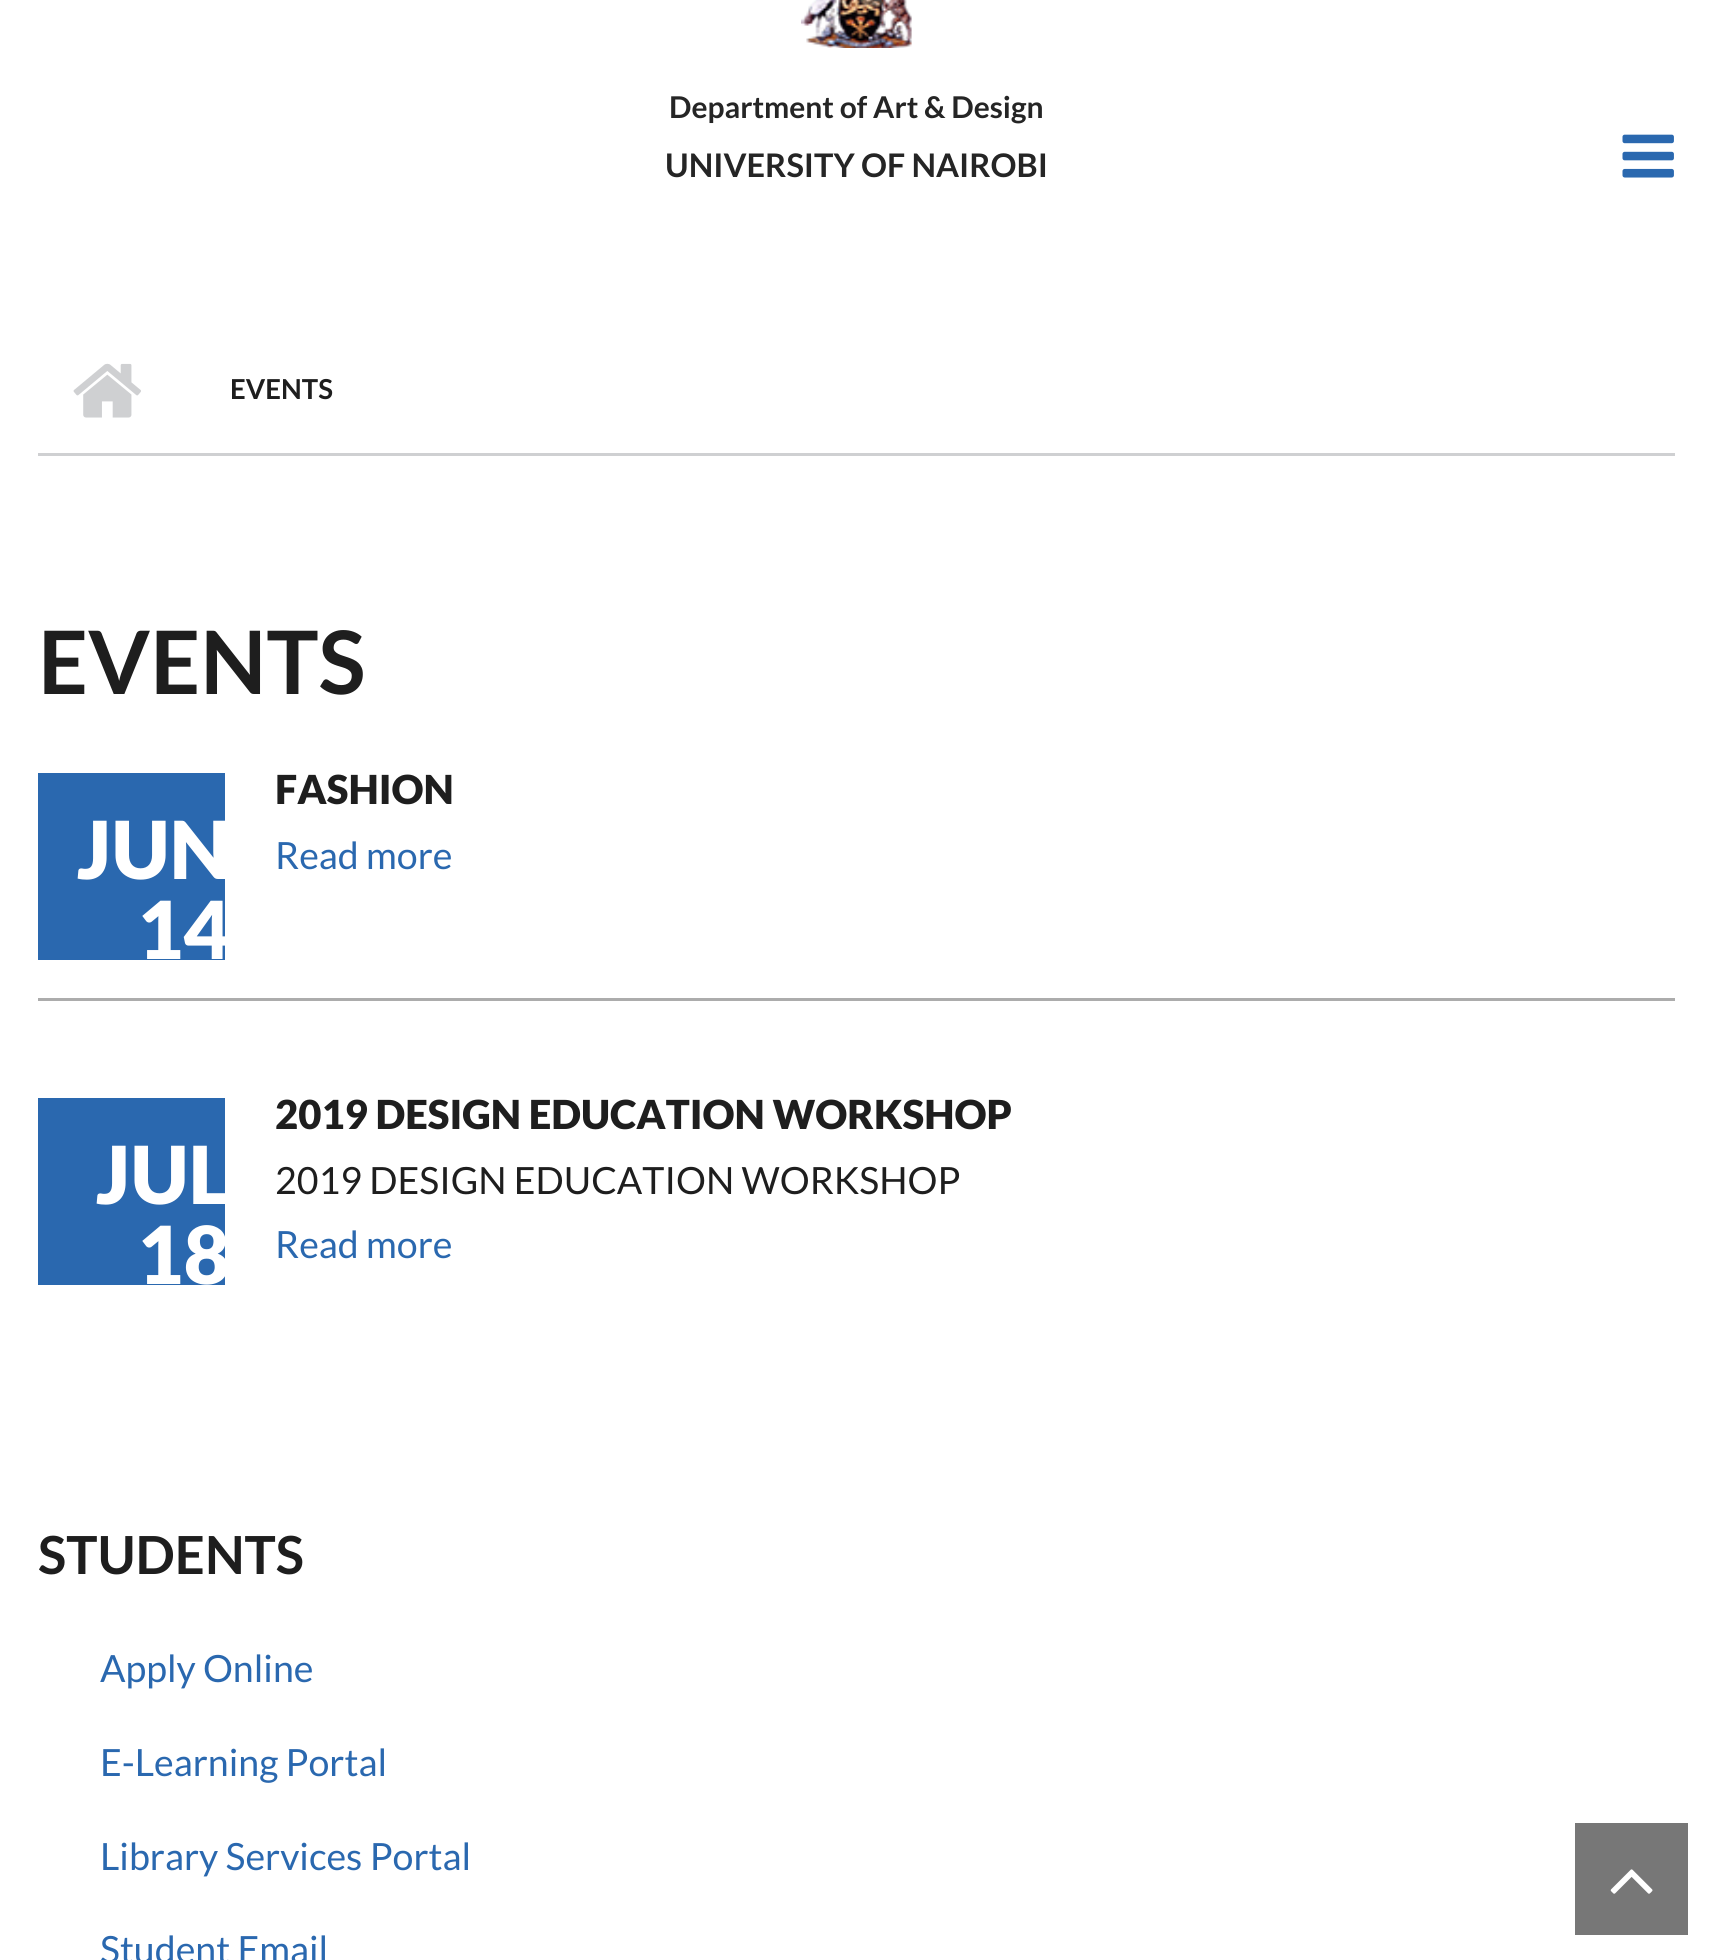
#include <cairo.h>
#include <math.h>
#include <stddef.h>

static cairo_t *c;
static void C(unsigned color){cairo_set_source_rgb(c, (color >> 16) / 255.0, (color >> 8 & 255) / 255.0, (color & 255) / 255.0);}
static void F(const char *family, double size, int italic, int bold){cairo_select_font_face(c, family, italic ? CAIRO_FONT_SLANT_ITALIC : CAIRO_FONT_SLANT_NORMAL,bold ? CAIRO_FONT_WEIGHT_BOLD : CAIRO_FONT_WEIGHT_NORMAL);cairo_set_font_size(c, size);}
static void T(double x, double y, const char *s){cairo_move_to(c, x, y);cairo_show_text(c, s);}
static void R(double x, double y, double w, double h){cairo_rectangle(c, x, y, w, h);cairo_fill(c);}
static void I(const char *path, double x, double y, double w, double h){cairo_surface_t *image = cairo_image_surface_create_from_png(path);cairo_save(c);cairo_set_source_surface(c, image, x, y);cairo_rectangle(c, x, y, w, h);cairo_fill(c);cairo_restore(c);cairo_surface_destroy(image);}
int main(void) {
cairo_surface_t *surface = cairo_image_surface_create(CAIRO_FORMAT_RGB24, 1711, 1960);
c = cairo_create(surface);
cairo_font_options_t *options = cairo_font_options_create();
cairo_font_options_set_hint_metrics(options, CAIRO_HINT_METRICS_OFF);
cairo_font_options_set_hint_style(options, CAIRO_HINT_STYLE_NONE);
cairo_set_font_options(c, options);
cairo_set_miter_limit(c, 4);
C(0xffffff);
cairo_paint(c);
I("1.png",800,0,112,48);
F("Lato",30,0,1);
C(0x252525);
T(669,118,"Department of Art & Design");
F("Lato",32.5,0,1);
T(665,177,"UNIVERSITY OF NAIROBI");
I("2.png",1622,134,52,44);
C(0xcfd0d2);
R(38,453,1637,3);
I("3.png",73,363,68,55);
F("Lato",27.5,0,1);
C(0x1e1e1e);
T(230,399,"EVENTS");
F("Lato",87.5,0,1);
T(38,694,"EVENTS");
C(0xacacac);
R(38,998,1637,3);
F("Lato Black",40,0,0);
C(0x1e1e1e);
T(275,804,"FASHION");
C(0x2a68af);
R(38,773,187,187);
F("Lato Black",80,0,0);
C(0xffffff);
T(77,879,"JUN");
T(137,959,"14");
F("Lato",37.5,0,0);
C(0x2a68af);
T(275,869,"Read more");
F("Lato Black",40,0,0);
C(0x1e1e1e);
T(275,1129,"2019 DESIGN EDUCATION WORKSHOP");
C(0x2a68af);
R(38,1098,187,187);
F("Lato Black",80,0,0);
C(0xffffff);
T(96,1204,"JUL");
T(137,1284,"18");
F("Lato",37.5,0,0);
C(0x1e1e1e);
T(275,1194,"2019 DESIGN EDUCATION WORKSHOP");
C(0x2a68af);
T(275,1258,"Read more");
F("Lato",52.5,0,1);
C(0x1e1e1e);
T(38,1574,"STUDENTS");
F("Lato",37.5,0,0);
C(0x2a68af);
T(100,1682,"Apply Online");
T(100,1776,"E-Learning Portal");
T(100,1870,"Library Services Portal");
T(100,1963,"Student Email");
C(0x777777);
R(1575,1823,113,112);
I("4.png",1610,1869,43,25);
cairo_surface_write_to_png(surface, "o.png");
cairo_font_options_destroy(options);
cairo_destroy(c);
cairo_surface_destroy(surface);
return 0;
}
